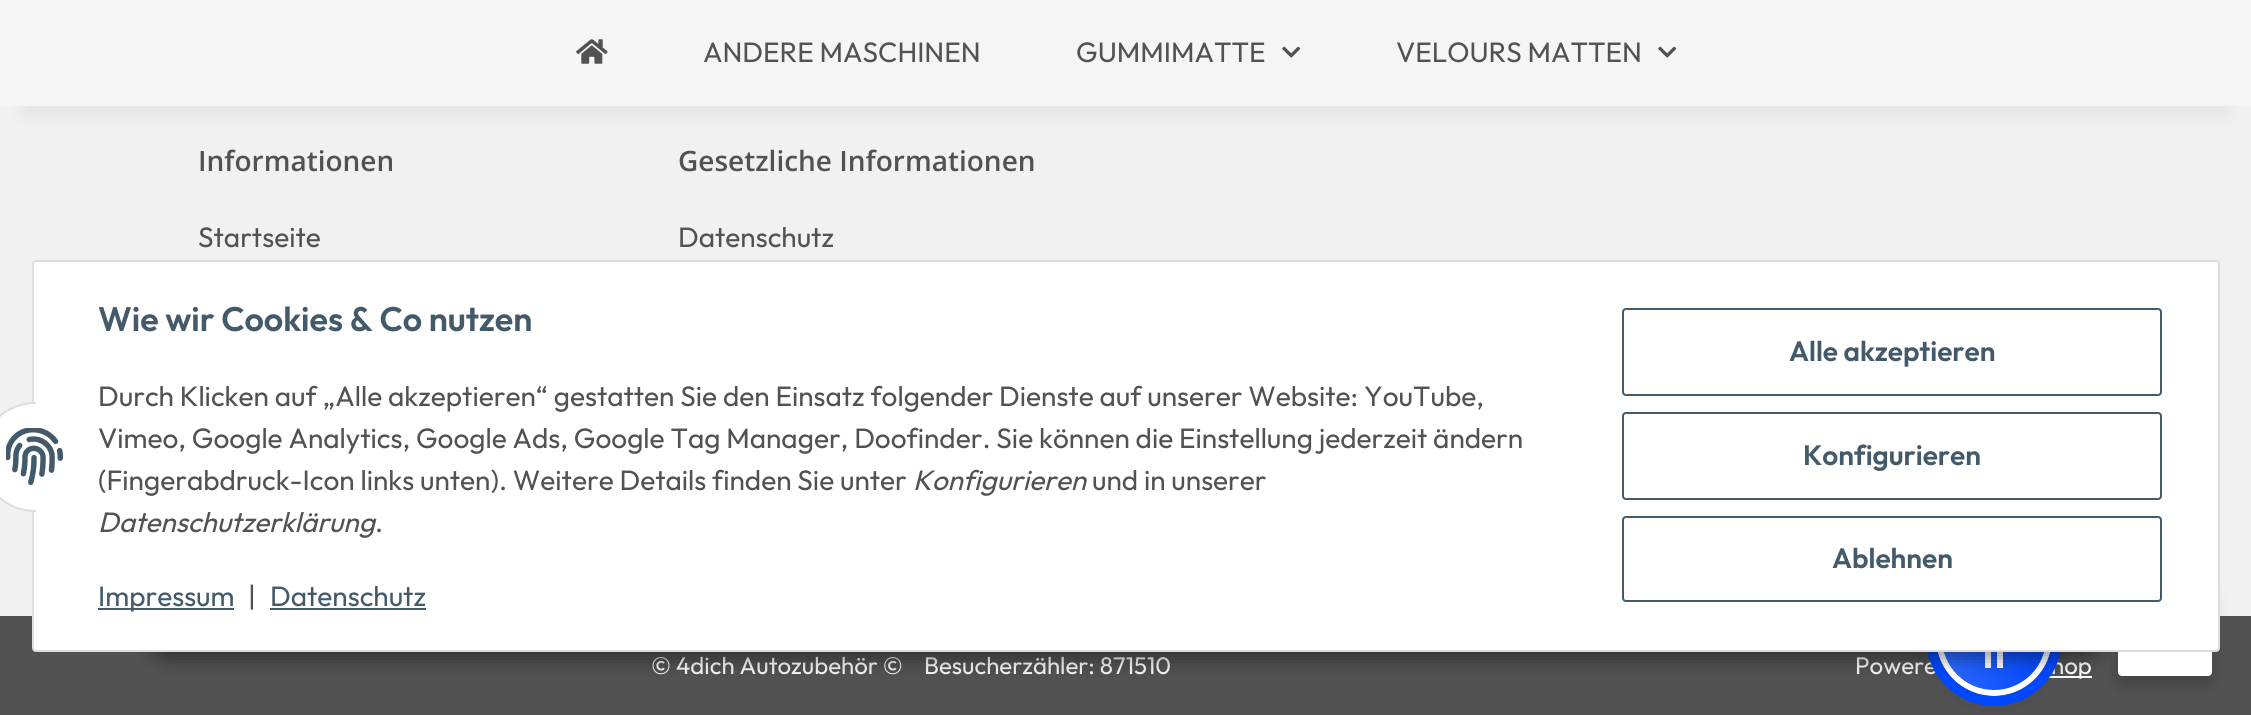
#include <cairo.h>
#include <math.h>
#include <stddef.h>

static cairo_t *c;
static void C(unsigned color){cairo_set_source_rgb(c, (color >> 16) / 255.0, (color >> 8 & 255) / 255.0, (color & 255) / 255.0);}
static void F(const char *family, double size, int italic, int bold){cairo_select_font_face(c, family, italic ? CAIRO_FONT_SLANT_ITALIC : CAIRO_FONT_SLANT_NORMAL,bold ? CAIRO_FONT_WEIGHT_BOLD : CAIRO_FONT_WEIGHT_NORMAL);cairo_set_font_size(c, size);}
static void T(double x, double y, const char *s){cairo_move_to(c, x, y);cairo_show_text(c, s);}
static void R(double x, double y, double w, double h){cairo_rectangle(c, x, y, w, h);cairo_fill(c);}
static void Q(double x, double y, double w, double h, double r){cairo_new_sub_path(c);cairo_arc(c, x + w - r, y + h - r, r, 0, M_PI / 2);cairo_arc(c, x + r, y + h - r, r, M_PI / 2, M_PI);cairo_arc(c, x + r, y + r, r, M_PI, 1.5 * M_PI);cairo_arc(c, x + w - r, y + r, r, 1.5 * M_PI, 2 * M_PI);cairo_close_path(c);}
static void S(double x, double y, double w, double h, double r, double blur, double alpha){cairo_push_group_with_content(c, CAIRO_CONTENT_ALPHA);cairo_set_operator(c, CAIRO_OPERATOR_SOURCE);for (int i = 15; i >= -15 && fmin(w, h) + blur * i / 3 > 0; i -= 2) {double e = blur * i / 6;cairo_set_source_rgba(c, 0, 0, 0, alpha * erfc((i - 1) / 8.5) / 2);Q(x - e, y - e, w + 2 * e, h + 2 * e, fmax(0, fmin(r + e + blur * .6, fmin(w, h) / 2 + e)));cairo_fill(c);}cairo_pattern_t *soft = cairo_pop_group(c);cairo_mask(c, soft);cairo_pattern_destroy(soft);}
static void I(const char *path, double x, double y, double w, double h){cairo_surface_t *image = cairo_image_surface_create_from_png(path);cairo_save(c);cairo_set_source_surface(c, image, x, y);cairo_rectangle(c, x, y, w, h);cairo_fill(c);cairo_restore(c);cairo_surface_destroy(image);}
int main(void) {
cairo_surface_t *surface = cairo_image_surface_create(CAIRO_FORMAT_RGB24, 2251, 715);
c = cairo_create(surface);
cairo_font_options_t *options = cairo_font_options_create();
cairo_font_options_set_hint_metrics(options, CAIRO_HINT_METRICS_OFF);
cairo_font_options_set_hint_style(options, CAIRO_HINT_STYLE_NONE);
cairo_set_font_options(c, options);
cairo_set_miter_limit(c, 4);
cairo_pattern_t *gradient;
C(0xf1f1f1);
cairo_paint(c);
C(0x000000);
S(24,56,2204,58,0,9,.06);
C(0xf5f5f5);
R(0,0,2251,106);
I("1.png",576,39,32,25);
F("Outfit",28,0,0);
C(0x525252);
T(703,62,"ANDERE MASCHINEN");
T(1076,62,"GUMMIMATTE");
I("2.png",1282,46,19,12);
T(1396,62,"VELOURS MATTEN");
I("2.png",1658,46,19,12);
F("Open Sans SemiBold",28,0,0);
T(198,171,"Informationen");
F("Outfit",28,0,0);
T(198,247,"Startseite");
F("Open Sans SemiBold",28,0,0);
T(678,171,"Gesetzliche Informationen");
F("Outfit",28,0,0);
T(678,247,"Datenschutz");
R(0,616,2251,99);
F("Outfit",24,0,0);
C(0xf5f7fa);
T(651,674,"© 4dich Autozubehör ©");
T(924,674,"Besucherzähler: 871510");
T(1855,674,"Powere");
C(0xffffff);
R(2036,676,56,2);
T(2051,674,"hop");
C(0x000000);
S(2118,596,94,88,4,8,.2);
C(0xffffff);
Q(2118,588,94,88,4);
cairo_fill(c);
C(0x5d6494);
S(1936,584,116,116,58,4,.2);
C(0x252c61);
S(1936,590,116,116,58,15,.15);
cairo_save(c);
Q(1936,580,116,116,58);
cairo_clip(c);
gradient = cairo_pattern_create_linear(1937,632,2051,644);
cairo_pattern_add_color_stop_rgba(gradient,0,0.196,0.424,1,1);
cairo_pattern_add_color_stop_rgba(gradient,1,0,0.282,1,1);
cairo_set_source(c,gradient);
cairo_pattern_destroy(gradient);
R(1942,652,104,38);
cairo_restore(c);
cairo_arc(c,1994,638,55,0,2 * M_PI);
C(0xffffff);
cairo_set_line_width(c,6);
cairo_stroke(c);
cairo_arc(c,1994,638,63,0,2 * M_PI);
C(0x0048ff);
cairo_set_line_width(c,10);
cairo_stroke(c);
I("4.png",1985,652,18,16);
C(0x000000);
S(144,594,1964,64,32,10,.45);
C(0xffffff);
Q(33,261,2186,390,3);
cairo_fill_preserve(c);
C(0xdddddd);
cairo_set_line_width(c,2);
cairo_stroke(c);
C(0xffffff);
cairo_arc(c,35,457,54,0,2 * M_PI);
cairo_fill_preserve(c);
C(0xdddddd);
cairo_stroke(c);
C(0xffffff);
R(36,402,54,110);
I("3.png",6,428,57,57);
F("Outfit SemiBold",34,0,0);
C(0x435a6b);
T(98,331,"Wie wir Cookies & Co nutzen");
F("Outfit",28,0,0);
C(0x525252);
T(98,406,"Durch Klicken auf „Alle akzeptieren“ gestatten Sie den Einsatz folgender Dienste auf unserer Website: YouTube,");
T(98,448,"Vimeo, Google Analytics, Google Ads, Google Tag Manager, Doofinder. Sie können die Einstellung jederzeit ändern");
T(98,490,"(Fingerabdruck-Icon links unten). Weitere Details finden Sie unter");
F("Outfit",28,1,0);
T(913,490,"Konfigurieren");
F("Outfit",28,0,0);
T(1092,490,"und in unserer");
F("Outfit",28,1,0);
T(98,532,"Datenschutzerklärung");
F("Outfit",28,0,0);
T(375,532,".");
C(0x435a6b);
R(98,608,136,2);
T(98,606,"Impressum");
C(0x525252);
T(248,606,"|");
C(0x435a6b);
T(270,606,"Datenschutz");
R(270,608,156,2);
Q(1623,309,538,86,3);
cairo_stroke(c);
F("Outfit SemiBold",28,0,0);
T(1789,361,"Alle akzeptieren");
Q(1623,413,538,86,3);
cairo_stroke(c);
T(1803,465,"Konfigurieren");
Q(1623,517,538,84,3);
cairo_stroke(c);
T(1832,568,"Ablehnen");
cairo_surface_write_to_png(surface, "o.png");
cairo_font_options_destroy(options);
cairo_destroy(c);
cairo_surface_destroy(surface);
return 0;
}
